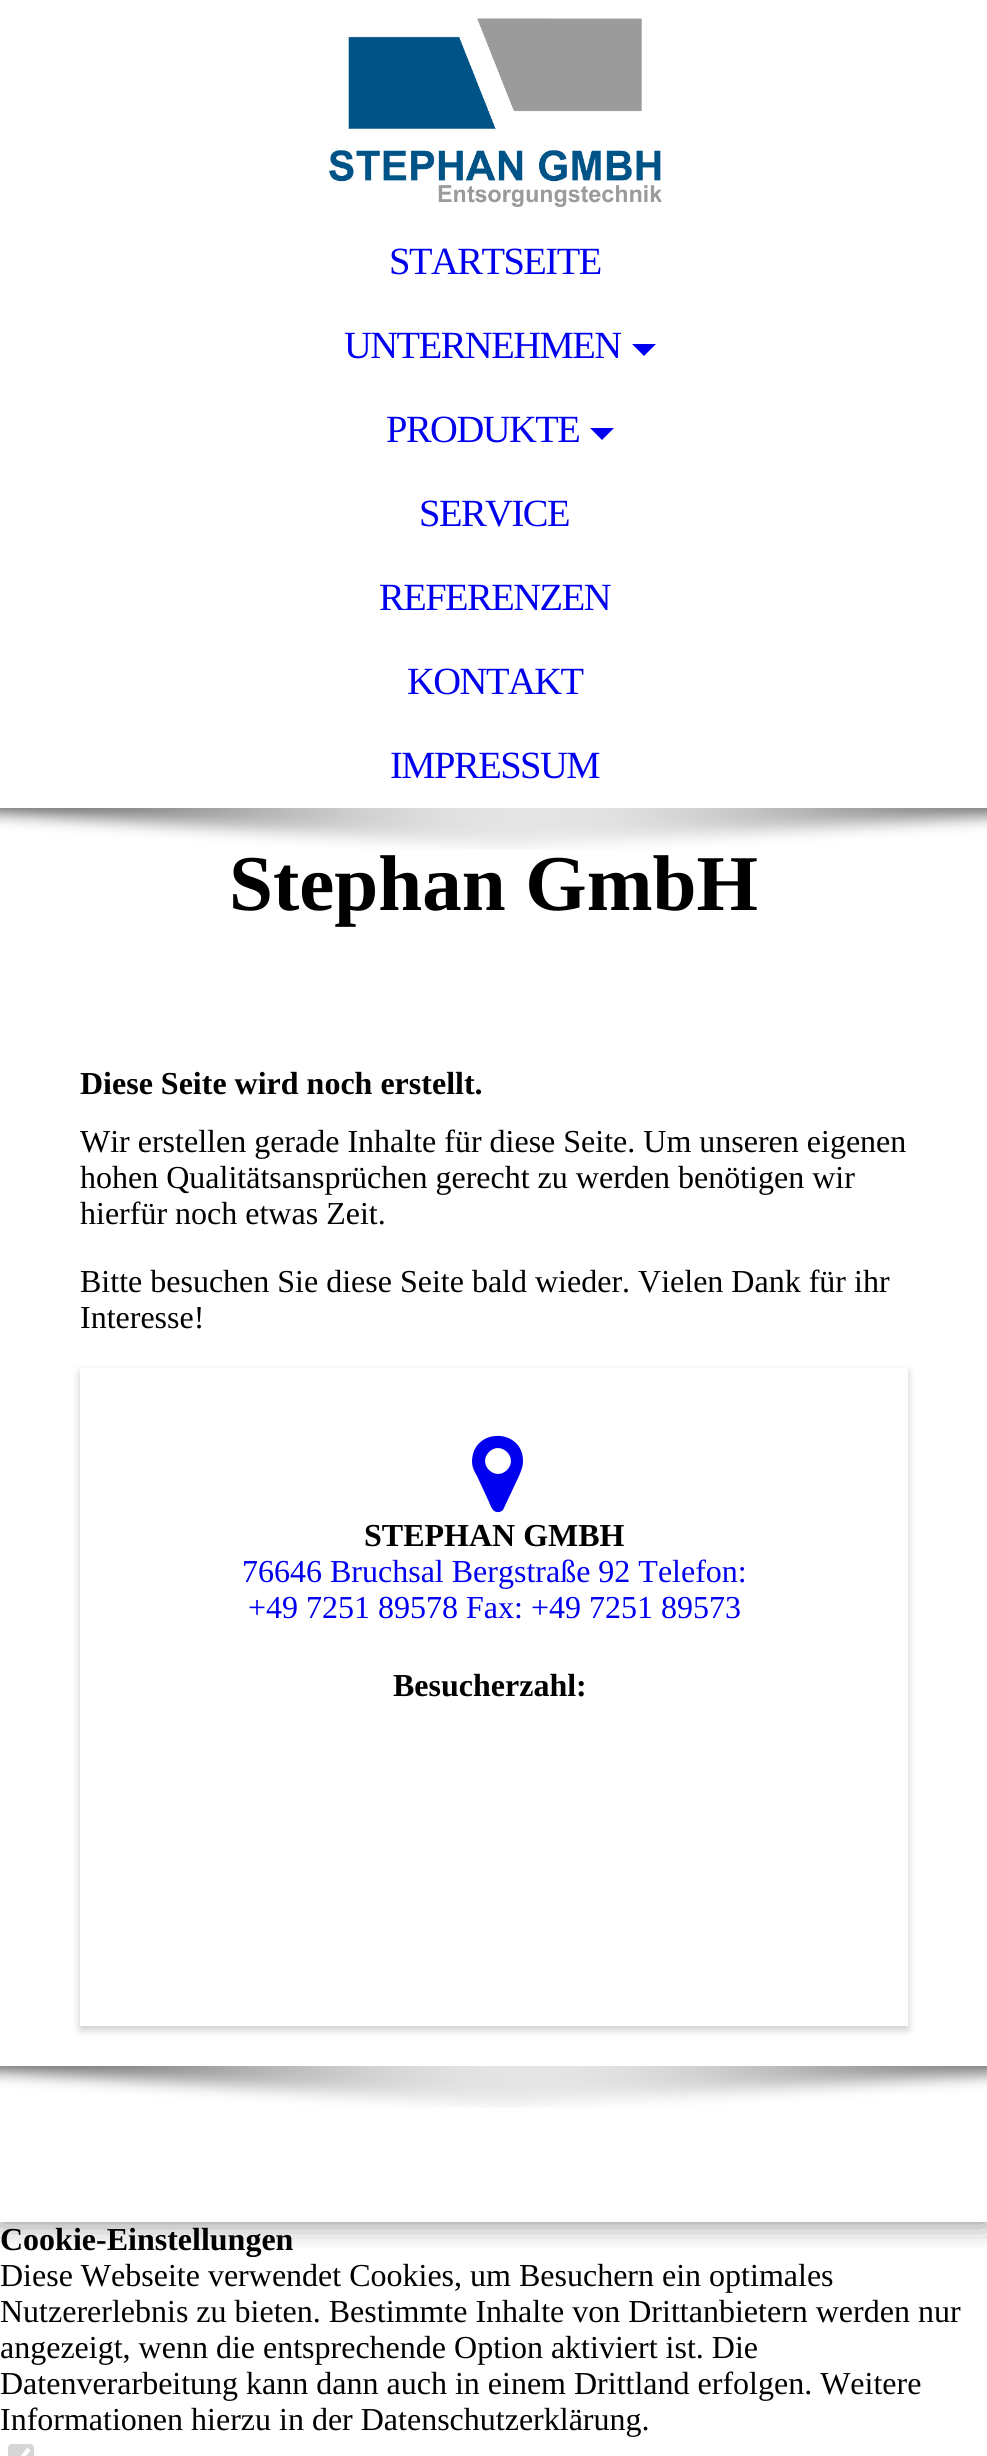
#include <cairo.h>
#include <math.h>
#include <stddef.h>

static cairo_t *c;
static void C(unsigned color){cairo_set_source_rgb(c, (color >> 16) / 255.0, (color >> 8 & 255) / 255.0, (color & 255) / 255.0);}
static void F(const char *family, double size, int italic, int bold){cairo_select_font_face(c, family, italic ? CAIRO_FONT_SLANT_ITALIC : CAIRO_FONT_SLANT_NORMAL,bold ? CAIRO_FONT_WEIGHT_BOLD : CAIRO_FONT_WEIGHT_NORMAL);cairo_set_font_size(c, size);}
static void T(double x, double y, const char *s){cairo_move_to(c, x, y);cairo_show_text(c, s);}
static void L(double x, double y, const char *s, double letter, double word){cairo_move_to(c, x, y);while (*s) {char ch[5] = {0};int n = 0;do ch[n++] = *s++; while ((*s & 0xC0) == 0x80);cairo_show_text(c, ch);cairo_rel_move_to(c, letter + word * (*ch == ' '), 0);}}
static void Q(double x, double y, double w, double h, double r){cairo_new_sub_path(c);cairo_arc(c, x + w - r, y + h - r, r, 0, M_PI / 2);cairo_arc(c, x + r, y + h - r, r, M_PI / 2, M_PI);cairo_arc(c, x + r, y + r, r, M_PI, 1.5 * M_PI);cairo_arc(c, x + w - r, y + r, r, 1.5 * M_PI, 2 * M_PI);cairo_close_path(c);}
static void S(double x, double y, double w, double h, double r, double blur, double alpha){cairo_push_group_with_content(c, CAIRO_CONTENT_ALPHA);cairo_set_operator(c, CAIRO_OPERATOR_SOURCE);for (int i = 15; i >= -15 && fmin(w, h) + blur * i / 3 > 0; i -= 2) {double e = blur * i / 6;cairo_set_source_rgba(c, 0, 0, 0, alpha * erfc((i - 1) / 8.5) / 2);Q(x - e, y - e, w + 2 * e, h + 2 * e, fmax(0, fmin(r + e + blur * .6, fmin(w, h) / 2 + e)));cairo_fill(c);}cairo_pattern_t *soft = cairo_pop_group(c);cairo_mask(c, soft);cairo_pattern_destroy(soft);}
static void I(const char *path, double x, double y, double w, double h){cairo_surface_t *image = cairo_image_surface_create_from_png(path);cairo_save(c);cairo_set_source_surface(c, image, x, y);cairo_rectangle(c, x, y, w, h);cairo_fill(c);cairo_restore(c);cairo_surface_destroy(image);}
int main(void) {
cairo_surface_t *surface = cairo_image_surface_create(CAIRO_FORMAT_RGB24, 987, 2456);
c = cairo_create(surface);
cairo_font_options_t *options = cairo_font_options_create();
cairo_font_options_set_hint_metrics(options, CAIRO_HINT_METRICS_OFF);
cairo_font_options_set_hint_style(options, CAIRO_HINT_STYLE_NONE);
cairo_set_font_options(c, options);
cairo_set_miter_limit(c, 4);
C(0xffffff);
cairo_paint(c);
cairo_save(c);
cairo_rectangle(c,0,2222,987,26);
cairo_clip(c);
C(0x000000);
S(0,0,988,2222,0,15,.5);
cairo_restore(c);
I("1.png",329,18,333,189);
F("Liberation Serif",38.5,0,0);
C(0x0000ee);
L(389,274,"STARTSEITE",-1.5,0);
L(344,358,"UNTERNEHMEN",-1.5,0);
cairo_new_path(c);
cairo_move_to(c,632,344);
cairo_line_to(c,656,344);
cairo_line_to(c,644,356);
cairo_close_path(c);
cairo_fill(c);
L(386,442,"PRODUKTE",-1.5,0);
cairo_new_path(c);
cairo_move_to(c,590,428);
cairo_line_to(c,614,428);
cairo_line_to(c,602,440);
cairo_close_path(c);
cairo_fill(c);
L(419,526,"SERVICE",-1.5,0);
L(379,610,"REFERENZEN",-1.5,0);
L(407,694,"KONTAKT",-1.5,0);
L(390,778,"IMPRESSUM",-1.5,0);
I("2.png",0,808,987,42);
F("Liberation Serif",79,0,1);
C(0x000000);
T(229,910,"Stephan GmbH");
F("Liberation Serif",32,0,1);
T(80,1094,"Diese Seite wird noch erstellt.");
F("Liberation Serif",32,0,0);
T(80,1152,"Wir erstellen gerade Inhalte für diese Seite. Um unseren eigenen");
T(80,1188,"hohen Qualitätsansprüchen gerecht zu werden benötigen wir");
T(80,1224,"hierfür noch etwas Zeit.");
T(80,1292,"Bitte besuchen Sie diese Seite bald wieder. Vielen Dank für ihr");
T(80,1328,"Interesse!");
cairo_save(c);
cairo_set_fill_rule(c,CAIRO_FILL_RULE_EVEN_ODD);
cairo_new_path(c);
cairo_move_to(c,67,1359);
cairo_line_to(c,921,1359);
cairo_line_to(c,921,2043);
cairo_line_to(c,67,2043);
cairo_close_path(c);
cairo_move_to(c,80,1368);
cairo_line_to(c,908,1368);
cairo_line_to(c,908,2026);
cairo_line_to(c,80,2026);
cairo_close_path(c);
cairo_clip(c);
C(0xcccccc);
S(80,1372,828,658,0,4,1);
cairo_restore(c);
C(0x0000ee);
cairo_new_path(c);
cairo_move_to(c,507,1470);
cairo_curve_to(c,519,1458,501,1440,489,1452);
cairo_curve_to(c,477,1464,495,1482,507,1470);
cairo_close_path(c);
cairo_move_to(c,523,1461);
cairo_curve_to(c,523,1467,521,1471,519,1476);
cairo_line_to(c,503,1510);
cairo_curve_to(c,502,1511,500,1512,499,1512);
cairo_curve_to(c,493,1513,491,1507,489,1502);
cairo_line_to(c,477,1476);
cairo_curve_to(c,474,1471,472,1467,472,1461);
cairo_curve_to(c,473,1427,523,1428,523,1461);
cairo_close_path(c);
cairo_fill(c);
F("Liberation Serif",32,0,1);
C(0x000000);
T(364,1546,"STEPHAN GMBH");
F("Liberation Serif",32,0,0);
C(0x0000ee);
T(242,1582,"76646 Bruchsal Bergstraße 92 Telefon:");
T(248,1618,"+49 7251 89578 Fax: +49 7251 89573");
F("Liberation Serif",32,0,1);
C(0x000000);
T(393,1696,"Besucherzahl:");
I("2.png",0,2066,987,42);
T(0,2250,"Cookie-Einstellungen");
F("Liberation Serif",32,0,0);
T(0,2286,"Diese Webseite verwendet Cookies, um Besuchern ein optimales");
T(0,2322,"Nutzererlebnis zu bieten. Bestimmte Inhalte von Drittanbietern werden nur");
T(0,2358,"angezeigt, wenn die entsprechende Option aktiviert ist. Die");
T(0,2394,"Datenverarbeitung kann dann auch in einem Drittland erfolgen. Weitere");
T(0,2430,"Informationen hierzu in der Datenschutzerklärung.");
C(0xd6d6d6);
Q(8,2444,26,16,4);
cairo_fill(c);
cairo_new_path(c);
cairo_move_to(c,13,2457);
cairo_line_to(c,18.5,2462);
cairo_line_to(c,29,2449);
C(0xffffff);
cairo_set_line_width(c,4.2);
cairo_stroke(c);
cairo_surface_write_to_png(surface, "o.png");
cairo_font_options_destroy(options);
cairo_destroy(c);
cairo_surface_destroy(surface);
return 0;
}
